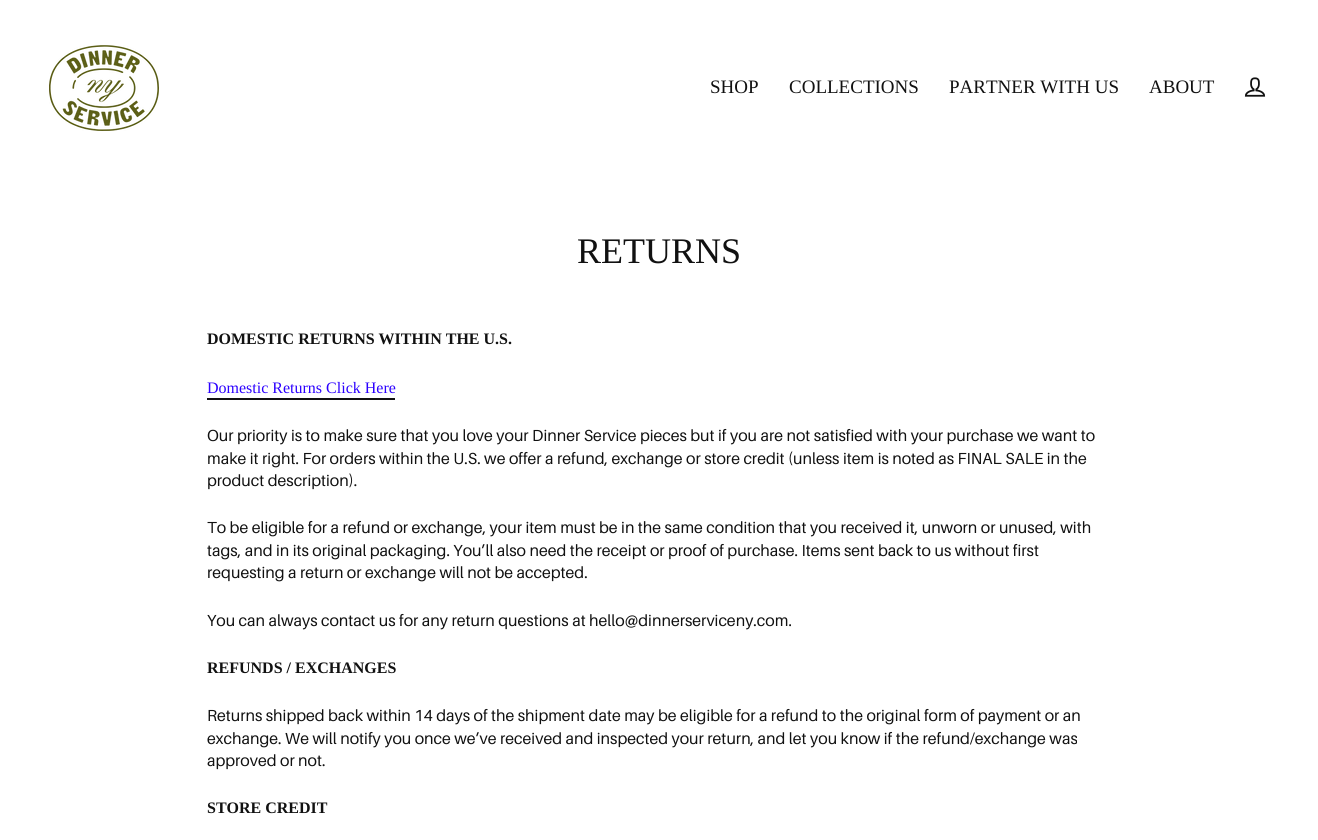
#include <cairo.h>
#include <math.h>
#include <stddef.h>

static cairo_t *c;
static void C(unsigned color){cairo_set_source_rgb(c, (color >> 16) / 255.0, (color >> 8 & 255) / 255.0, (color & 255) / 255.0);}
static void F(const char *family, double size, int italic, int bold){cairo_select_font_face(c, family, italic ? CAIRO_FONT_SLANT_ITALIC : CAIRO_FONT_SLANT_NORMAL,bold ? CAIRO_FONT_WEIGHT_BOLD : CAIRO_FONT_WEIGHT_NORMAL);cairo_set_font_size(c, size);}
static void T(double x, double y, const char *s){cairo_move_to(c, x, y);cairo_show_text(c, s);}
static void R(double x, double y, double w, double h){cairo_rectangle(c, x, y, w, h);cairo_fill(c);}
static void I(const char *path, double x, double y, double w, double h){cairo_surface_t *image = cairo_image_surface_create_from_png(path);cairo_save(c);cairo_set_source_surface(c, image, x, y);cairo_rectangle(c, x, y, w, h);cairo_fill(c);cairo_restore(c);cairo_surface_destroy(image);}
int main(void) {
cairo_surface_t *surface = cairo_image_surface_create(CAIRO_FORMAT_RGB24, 1318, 840);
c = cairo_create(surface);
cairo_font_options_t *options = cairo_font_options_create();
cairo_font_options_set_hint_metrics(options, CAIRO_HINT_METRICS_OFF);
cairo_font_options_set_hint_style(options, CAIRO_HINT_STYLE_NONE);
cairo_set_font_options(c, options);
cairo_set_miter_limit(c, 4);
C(0xffffff);
cairo_paint(c);
I("1.png",49,45,110,86);
F("Liberation Serif",19,0,0);
C(0x111111);
T(710,93,"SHOP");
T(789,93,"COLLECTIONS");
T(949,93,"PARTNER WITH US");
T(1149,93,"ABOUT");
I("2.png",1244,77,22,20);
F("Liberation Serif",36,0,0);
T(577,263,"RETURNS");
F("Liberation Serif",16,0,1);
T(207,344,"DOMESTIC RETURNS WITHIN THE U.S.");
F("Liberation Serif",16,0,0);
C(0x2b00ff);
T(207,393,"Domestic Returns Click Here");
C(0x111111);
R(207,398,188,2);
F("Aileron",16,0,0);
T(207,441,"Our priority is to make sure that you love your Dinner Service pieces but if you are not satisfied with your purchase we want to");
T(207,464,"make it right. For orders within the U.S. we offer a refund, exchange or store credit (unless item is noted as FINAL SALE in the");
T(207,486,"product description).");
T(207,533,"To be eligible for a refund or exchange, your item must be in the same condition that you received it, unworn or unused, with");
T(207,556,"tags, and in its original packaging. You’ll also need the receipt or proof of purchase. Items sent back to us without first");
T(207,578,"requesting a return or exchange will not be accepted.");
T(207,626,"You can always contact us for any return questions at hello@dinnerserviceny.com.");
F("Liberation Serif",16,0,1);
T(207,673,"REFUNDS / EXCHANGES");
F("Aileron",16,0,0);
T(207,721,"Returns shipped back within 14 days of the shipment date may be eligible for a refund to the original form of payment or an");
T(207,744,"exchange. We will notify you once we’ve received and inspected your return, and let you know if the refund/exchange was");
T(207,766,"approved or not.");
F("Liberation Serif",16,0,1);
T(207,813,"STORE CREDIT");
cairo_surface_write_to_png(surface, "o.png");
cairo_font_options_destroy(options);
cairo_destroy(c);
cairo_surface_destroy(surface);
return 0;
}
